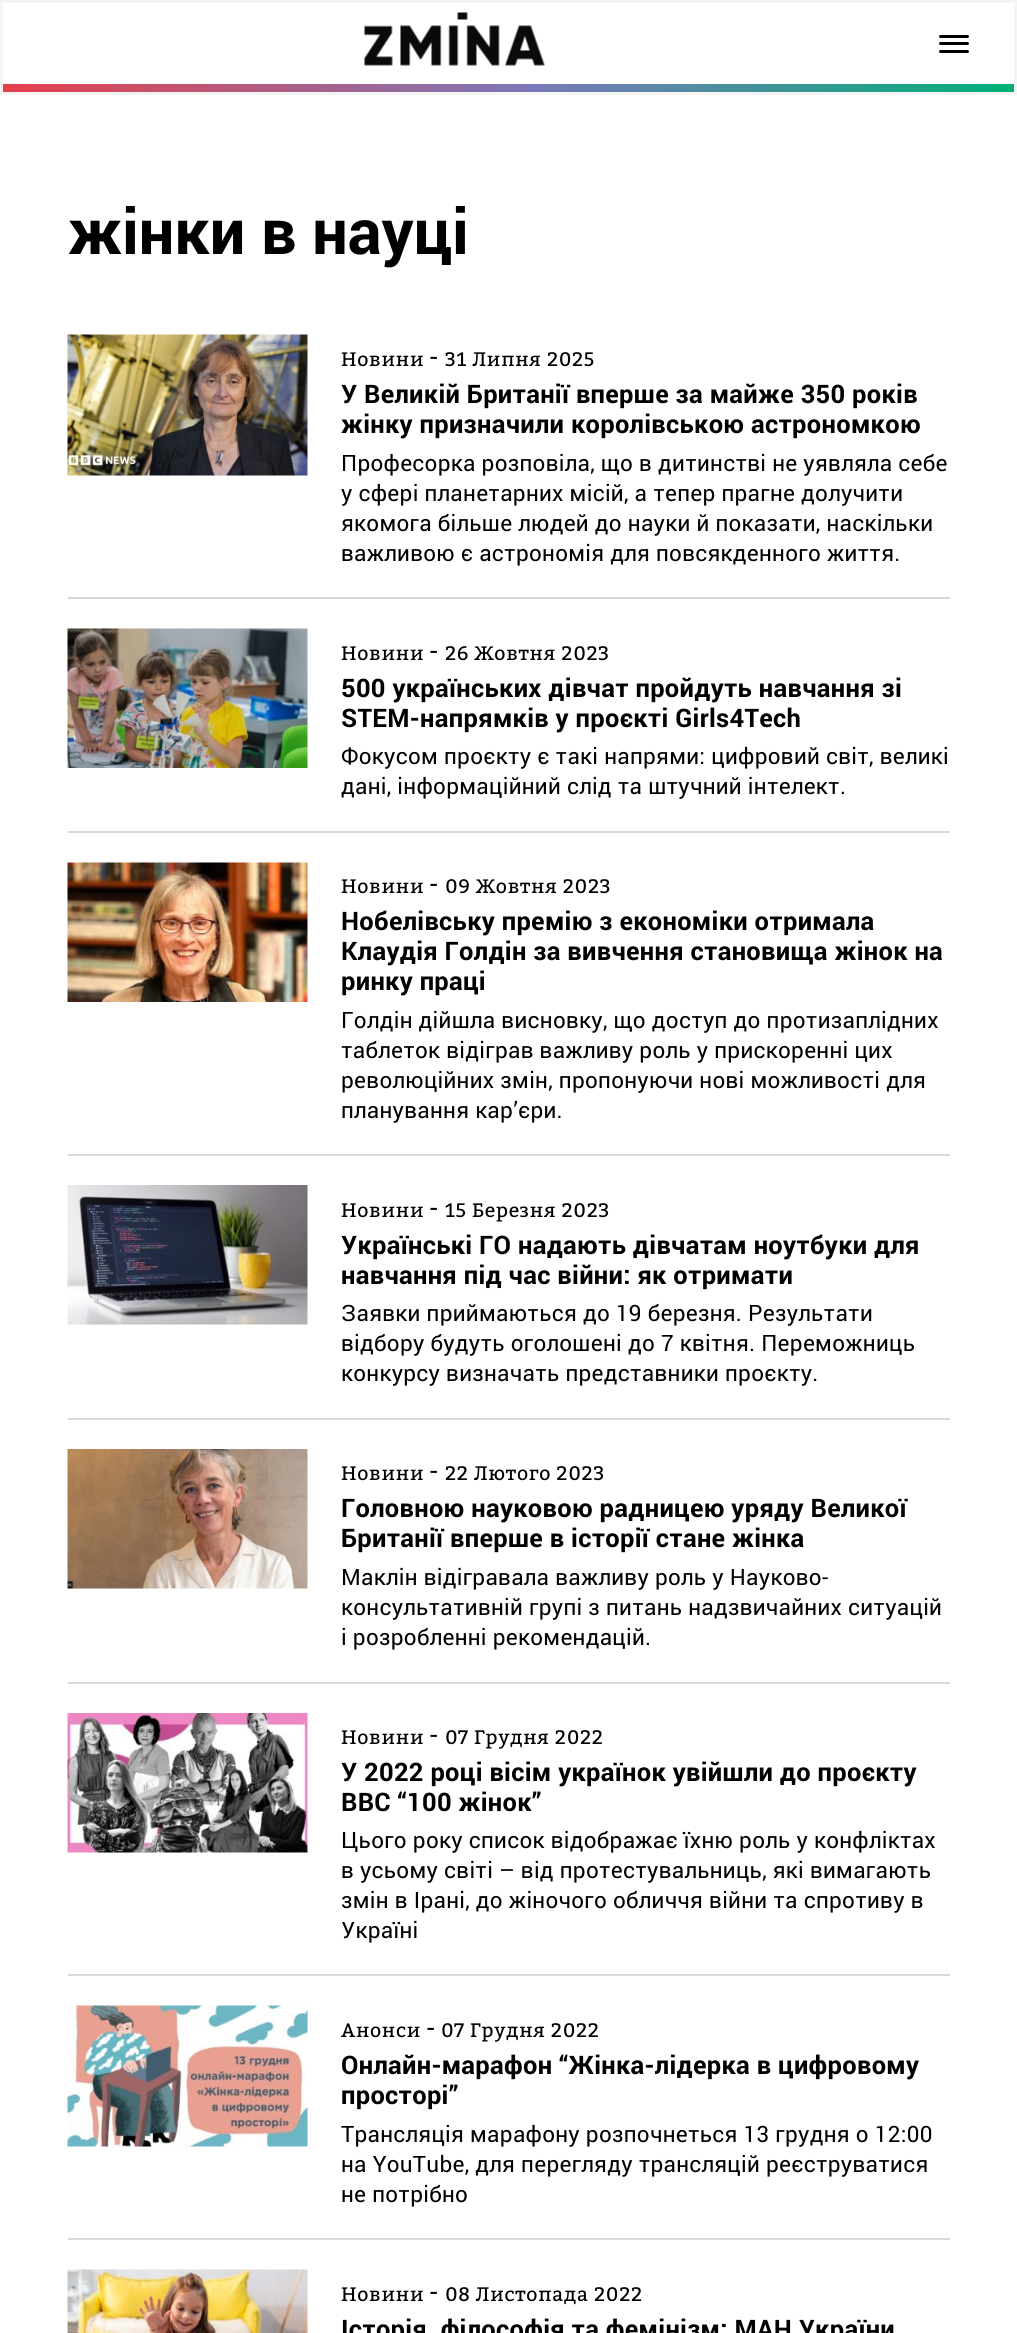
#include <cairo.h>
#include <math.h>
#include <stddef.h>

static cairo_t *c;
static void C(unsigned color){cairo_set_source_rgb(c, (color >> 16) / 255.0, (color >> 8 & 255) / 255.0, (color & 255) / 255.0);}
static void F(const char *family, double size, int italic, int bold){cairo_select_font_face(c, family, italic ? CAIRO_FONT_SLANT_ITALIC : CAIRO_FONT_SLANT_NORMAL,bold ? CAIRO_FONT_WEIGHT_BOLD : CAIRO_FONT_WEIGHT_NORMAL);cairo_set_font_size(c, size);}
static void T(double x, double y, const char *s){cairo_move_to(c, x, y);cairo_show_text(c, s);}
static void L(double x, double y, const char *s, double letter, double word){cairo_move_to(c, x, y);while (*s) {char ch[5] = {0};int n = 0;do ch[n++] = *s++; while ((*s & 0xC0) == 0x80);cairo_show_text(c, ch);cairo_rel_move_to(c, letter + word * (*ch == ' '), 0);}}
static void R(double x, double y, double w, double h){cairo_rectangle(c, x, y, w, h);cairo_fill(c);}
static void Q(double x, double y, double w, double h, double r){cairo_new_sub_path(c);cairo_arc(c, x + w - r, y + h - r, r, 0, M_PI / 2);cairo_arc(c, x + r, y + h - r, r, M_PI / 2, M_PI);cairo_arc(c, x + r, y + r, r, M_PI, 1.5 * M_PI);cairo_arc(c, x + w - r, y + r, r, 1.5 * M_PI, 2 * M_PI);cairo_close_path(c);}
static void I(const char *path, double x, double y, double w, double h){cairo_surface_t *image = cairo_image_surface_create_from_png(path);cairo_save(c);cairo_set_source_surface(c, image, x, y);cairo_rectangle(c, x, y, w, h);cairo_fill(c);cairo_restore(c);cairo_surface_destroy(image);}
int main(void) {
cairo_surface_t *surface = cairo_image_surface_create(CAIRO_FORMAT_RGB24, 1017, 2333);
c = cairo_create(surface);
cairo_font_options_t *options = cairo_font_options_create();
cairo_font_options_set_hint_metrics(options, CAIRO_HINT_METRICS_OFF);
cairo_font_options_set_hint_style(options, CAIRO_HINT_STYLE_NONE);
cairo_set_font_options(c, options);
cairo_set_miter_limit(c, 4);
cairo_pattern_t *gradient;
C(0xffffff);
cairo_paint(c);
cairo_rectangle(c,1.5,1.5,1014,92);
C(0xf5f5f5);
cairo_set_line_width(c,3);
cairo_stroke(c);
I("1.png",364,12,181,54);
C(0x000000);
Q(939,42,30,3,1.5);
cairo_fill(c);
Q(939,35,30,3,1.5);
cairo_fill(c);
Q(939,50,30,3,1.5);
cairo_fill(c);
gradient = cairo_pattern_create_linear(3,88,1014,88);
cairo_pattern_add_color_stop_rgba(gradient,0,0.902,0.251,0.294,1);
cairo_pattern_add_color_stop_rgba(gradient,.52,0.486,0.471,0.722,1);
cairo_pattern_add_color_stop_rgba(gradient,1,0,0.69,0.467,1);
cairo_set_source(c,gradient);
cairo_pattern_destroy(gradient);
R(3,84,1011,8);
F("Roboto",63,0,1);
C(0x000000);
T(68,254,"жінки в науці");
C(0xd9d9d9);
R(68,597,882,2);
I("2.png",67,334,241,142);
F("Bitter",19.5,0,0);
C(0x000000);
L(341,366,"Новини",.75,0);
F("Roboto",27,0,0);
T(430,366,"-");
F("Bitter",19.5,0,0);
L(445,366,"31 Липня 2025",.75,0);
F("Roboto",25.5,0,1);
L(341,403,"У Великій Британії вперше за майже 350 років",.3,0);
L(341,433,"жінку призначили королівською астрономкою",.3,0);
F("Roboto",22.5,0,0);
L(341,471,"Професорка розповіла, що в дитинстві не уявляла себе",.3,0);
L(341,501,"у сфері планетарних місій, а тепер прагне долучити",.3,0);
L(341,531,"якомога більше людей до науки й показати, наскільки",.3,0);
L(341,561,"важливою є астрономія для повсякденного життя.",.3,0);
C(0xd9d9d9);
R(68,831,882,2);
I("3.png",67,628,241,140);
F("Bitter",19.5,0,0);
C(0x000000);
L(341,660,"Новини",.75,0);
F("Roboto",27,0,0);
T(430,660,"-");
F("Bitter",19.5,0,0);
L(445,660,"26 Жовтня 2023",.75,0);
F("Roboto",25.5,0,1);
L(341,697,"500 українських дівчат пройдуть навчання зі",.3,0);
L(341,727,"STEM-напрямків у проєкті Girls4Tech",.3,0);
F("Roboto",22.5,0,0);
L(341,764,"Фокусом проєкту є такі напрями: цифровий світ, великі",.3,0);
L(341,794,"дані, інформаційний слід та штучний інтелект.",.3,0);
C(0xd9d9d9);
R(68,1154,882,2);
I("4.png",67,862,241,140);
F("Bitter",19.5,0,0);
C(0x000000);
L(341,893,"Новини",.75,0);
F("Roboto",27,0,0);
T(430,893,"-");
F("Bitter",19.5,0,0);
L(445,893,"09 Жовтня 2023",.75,0);
F("Roboto",25.5,0,1);
L(341,930,"Нобелівську премію з економіки отримала",.3,0);
L(341,960,"Клаудія Голдін за вивчення становища жінок на",.3,0);
L(341,990,"ринку праці",.3,0);
F("Roboto",22.5,0,0);
L(341,1028,"Голдін дійшла висновку, що доступ до протизаплідних",.3,0);
L(341,1058,"таблеток відіграв важливу роль у прискоренні цих",.3,0);
L(341,1088,"революційних змін, пропонуючи нові можливості для",.3,0);
L(341,1118,"планування кар’єри.",.3,0);
C(0xd9d9d9);
R(68,1418,882,2);
I("5.png",67,1185,241,140);
F("Bitter",19.5,0,0);
C(0x000000);
L(341,1217,"Новини",.75,0);
F("Roboto",27,0,0);
T(430,1217,"-");
F("Bitter",19.5,0,0);
L(445,1217,"15 Березня 2023",.75,0);
F("Roboto",25.5,0,1);
L(341,1254,"Українські ГО надають дівчатам ноутбуки для",.3,0);
L(341,1284,"навчання під час війни: як отримати",.3,0);
F("Roboto",22.5,0,0);
L(341,1321,"Заявки приймаються до 19 березня. Результати",.3,0);
L(341,1351,"відбору будуть оголошені до 7 квітня. Переможниць",.3,0);
L(341,1381,"конкурсу визначать представники проєкту.",.3,0);
C(0xd9d9d9);
R(68,1682,882,2);
I("6.png",67,1449,241,140);
F("Bitter",19.5,0,0);
C(0x000000);
L(341,1480,"Новини",.75,0);
F("Roboto",27,0,0);
T(430,1480,"-");
F("Bitter",19.5,0,0);
L(445,1480,"22 Лютого 2023",.75,0);
F("Roboto",25.5,0,1);
L(341,1517,"Головною науковою радницею уряду Великої",.3,0);
L(341,1547,"Британії вперше в історії стане жінка",.3,0);
F("Roboto",22.5,0,0);
L(341,1585,"Маклін відігравала важливу роль у Науково-",.3,0);
L(341,1615,"консультативній групі з питань надзвичайних ситуацій",.3,0);
L(341,1645,"і розробленні рекомендацій.",.3,0);
C(0xd9d9d9);
R(68,1974,882,2);
I("7.png",67,1713,241,140);
F("Bitter",19.5,0,0);
C(0x000000);
L(341,1744,"Новини",.75,0);
F("Roboto",27,0,0);
T(430,1744,"-");
F("Bitter",19.5,0,0);
L(445,1744,"07 Грудня 2022",.75,0);
F("Roboto",25.5,0,1);
L(341,1781,"У 2022 році вісім українок увійшли до проєкту",.3,0);
L(341,1811,"ВВС “100 жінок”",.3,0);
F("Roboto",22.5,0,0);
L(341,1848,"Цього року список відображає їхню роль у конфліктах",.3,0);
L(341,1878,"в усьому світі – від протестувальниць, які вимагають",.3,0);
L(341,1908,"змін в Ірані, до жіночого обличчя війни та спротиву в",.3,0);
L(341,1938,"Україні",.3,0);
C(0xd9d9d9);
R(68,2238,882,2);
I("8.png",67,2005,241,142);
F("Bitter",19.5,0,0);
C(0x000000);
L(341,2037,"Анонси",.75,0);
F("Roboto",27,0,0);
T(427,2037,"-");
F("Bitter",19.5,0,0);
L(441,2037,"07 Грудня 2022",.75,0);
F("Roboto",25.5,0,1);
L(341,2074,"Онлайн-марафон “Жінка-лідерка в цифровому",.3,0);
L(341,2104,"просторі”",.3,0);
F("Roboto",22.5,0,0);
L(341,2142,"Трансляція марафону розпочнеться 13 грудня о 12:00",.3,0);
L(341,2172,"на YouTube, для перегляду трансляцій реєструватися",.3,0);
L(341,2202,"не потрібно",.3,0);
I("9.png",67,2269,241,64);
F("Bitter",19.5,0,0);
L(341,2301,"Новини",.75,0);
F("Roboto",27,0,0);
T(430,2301,"-");
F("Bitter",19.5,0,0);
L(445,2301,"08 Листопада 2022",.75,0);
F("Roboto",25.5,0,1);
L(341,2338,"Історія, філософія та фемінізм: МАН України",.3,0);
cairo_surface_write_to_png(surface, "o.png");
cairo_font_options_destroy(options);
cairo_destroy(c);
cairo_surface_destroy(surface);
return 0;
}
